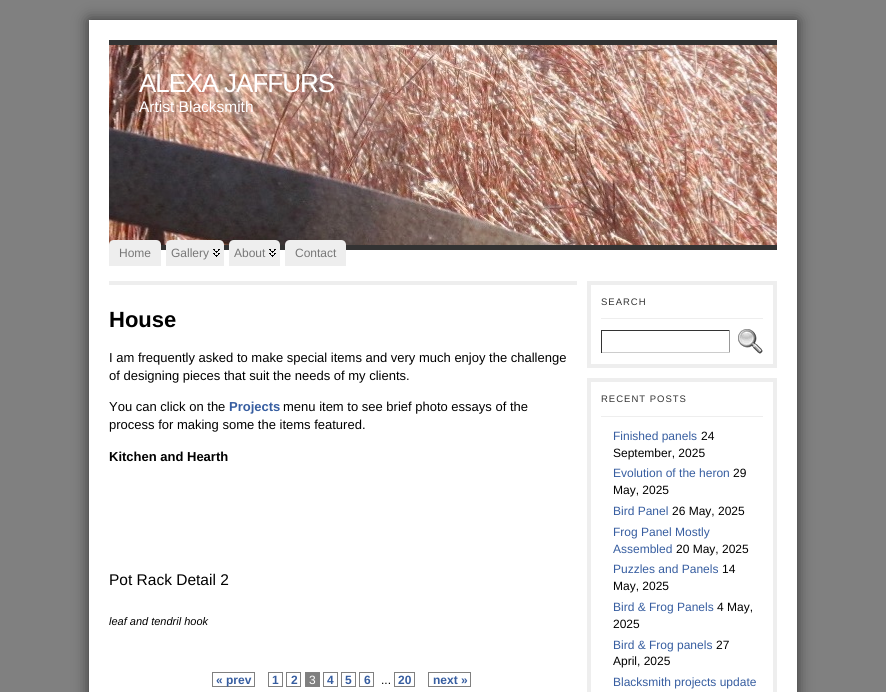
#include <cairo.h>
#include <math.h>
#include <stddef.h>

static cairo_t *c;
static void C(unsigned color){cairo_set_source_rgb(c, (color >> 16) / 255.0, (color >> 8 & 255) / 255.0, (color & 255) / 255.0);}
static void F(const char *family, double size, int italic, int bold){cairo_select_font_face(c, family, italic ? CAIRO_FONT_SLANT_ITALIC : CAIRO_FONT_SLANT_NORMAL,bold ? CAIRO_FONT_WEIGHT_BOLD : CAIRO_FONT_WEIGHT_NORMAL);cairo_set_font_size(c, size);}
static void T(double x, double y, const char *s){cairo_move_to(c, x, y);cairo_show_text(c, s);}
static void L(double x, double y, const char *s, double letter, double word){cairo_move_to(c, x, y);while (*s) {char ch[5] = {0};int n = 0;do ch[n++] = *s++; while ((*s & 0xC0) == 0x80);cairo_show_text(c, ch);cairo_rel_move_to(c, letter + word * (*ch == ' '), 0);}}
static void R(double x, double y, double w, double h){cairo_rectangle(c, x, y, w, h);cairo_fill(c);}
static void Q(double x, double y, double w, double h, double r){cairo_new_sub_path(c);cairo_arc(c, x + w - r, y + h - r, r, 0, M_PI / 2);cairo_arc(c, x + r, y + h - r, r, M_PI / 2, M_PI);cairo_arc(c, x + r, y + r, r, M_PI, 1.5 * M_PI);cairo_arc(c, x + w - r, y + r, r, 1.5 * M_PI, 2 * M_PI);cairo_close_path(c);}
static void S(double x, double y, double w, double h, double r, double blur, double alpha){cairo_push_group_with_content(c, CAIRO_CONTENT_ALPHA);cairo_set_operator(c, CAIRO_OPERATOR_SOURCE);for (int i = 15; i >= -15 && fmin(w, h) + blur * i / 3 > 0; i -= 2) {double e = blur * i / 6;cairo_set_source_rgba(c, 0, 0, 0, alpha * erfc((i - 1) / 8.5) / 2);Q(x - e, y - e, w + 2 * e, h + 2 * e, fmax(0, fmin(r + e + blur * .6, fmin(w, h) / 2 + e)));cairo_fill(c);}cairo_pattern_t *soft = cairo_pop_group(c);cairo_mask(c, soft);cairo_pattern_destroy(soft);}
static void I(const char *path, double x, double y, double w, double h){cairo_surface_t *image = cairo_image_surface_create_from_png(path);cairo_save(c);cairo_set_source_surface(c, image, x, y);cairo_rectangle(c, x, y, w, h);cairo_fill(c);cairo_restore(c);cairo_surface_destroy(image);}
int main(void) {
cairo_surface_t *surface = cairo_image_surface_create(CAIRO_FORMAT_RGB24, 886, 692);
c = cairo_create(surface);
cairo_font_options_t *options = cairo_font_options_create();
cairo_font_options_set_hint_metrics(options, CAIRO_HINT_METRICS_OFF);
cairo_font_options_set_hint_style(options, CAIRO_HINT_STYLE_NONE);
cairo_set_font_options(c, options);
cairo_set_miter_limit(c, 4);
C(0x808080);
cairo_paint(c);
C(0x333333);
S(89,20,708,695,0,7.5,1);
C(0xffffff);
R(89,20,708,672);
I("1.png",109,45,668,200);
C(0x333333);
R(109,40,668,5);
R(161,245,616,5);
F("Liberation Sans",26,0,0);
C(0xffffff);
L(139,92,"ALEXA JAFFURS",-1,0);
F("Liberation Sans",15.5,0,0);
T(139,112,"Artist Blacksmith");
C(0xeeeeee);
cairo_new_path(c);
cairo_move_to(c,114,240);
cairo_line_to(c,156,240);
cairo_curve_to(c,159,240,161,242,161,245);
cairo_line_to(c,161,266);
cairo_line_to(c,109,266);
cairo_line_to(c,109,245);
cairo_curve_to(c,109,242,111,240,114,240);
cairo_close_path(c);
cairo_fill(c);
F("Liberation Sans",12,0,0);
C(0x777777);
T(119,257,"Home");
C(0xeeeeee);
cairo_new_path(c);
cairo_move_to(c,171,240);
cairo_line_to(c,219,240);
cairo_curve_to(c,222,240,224,242,224,245);
cairo_line_to(c,224,266);
cairo_line_to(c,166,266);
cairo_line_to(c,166,245);
cairo_curve_to(c,166,242,168,240,171,240);
cairo_close_path(c);
cairo_fill(c);
I("2.png",213,249,7,8);
C(0x777777);
T(171,257,"Gallery");
C(0xeeeeee);
cairo_new_path(c);
cairo_move_to(c,234,240);
cairo_line_to(c,275,240);
cairo_curve_to(c,278,240,280,242,280,245);
cairo_line_to(c,280,266);
cairo_line_to(c,229,266);
cairo_line_to(c,229,245);
cairo_curve_to(c,229,242,231,240,234,240);
cairo_close_path(c);
cairo_fill(c);
I("2.png",269,249,7,8);
C(0x777777);
T(234,257,"About");
C(0xeeeeee);
cairo_new_path(c);
cairo_move_to(c,290,240);
cairo_line_to(c,341,240);
cairo_curve_to(c,344,240,346,242,346,245);
cairo_line_to(c,346,266);
cairo_line_to(c,285,266);
cairo_line_to(c,285,245);
cairo_curve_to(c,285,242,287,240,290,240);
cairo_close_path(c);
cairo_fill(c);
C(0x777777);
T(295,257,"Contact");
C(0xeeeeee);
R(109,281,468,4);
F("Liberation Sans",22,0,1);
C(0x000000);
T(109,327,"House");
F("Liberation Sans",13,0,0);
T(109,362,"I am frequently asked to make special items and very much enjoy the challenge");
T(109,380,"of designing pieces that suit the needs of my clients.");
T(109,411,"You can click on the");
F("Liberation Sans",13,0,1);
C(0x365da0);
T(229,411,"Projects");
F("Liberation Sans",13,0,0);
C(0x000000);
T(283,411,"menu item to see brief photo essays of the");
T(109,429,"process for making some the items featured.");
F("Liberation Sans",13,0,1);
T(109,461,"Kitchen and Hearth");
F("Liberation Sans",15.5,0,0);
T(109,585,"Pot Rack Detail 2");
F("Liberation Sans",11,1,0);
T(109,625,"leaf and tendril hook");
cairo_rectangle(c,212.5,672.5,42,14);
C(0x808080);
cairo_set_line_width(c,1);
cairo_stroke(c);
F("Liberation Sans",12,0,1);
C(0x365da0);
T(216,684,"« prev");
cairo_rectangle(c,268.5,672.5,14,14);
C(0x808080);
cairo_stroke(c);
C(0x365da0);
T(272,684,"1");
cairo_rectangle(c,286.5,672.5,14,14);
C(0x808080);
cairo_stroke(c);
C(0x365da0);
T(291,684,"2");
C(0x808080);
R(305,672,15,15);
F("Liberation Sans",12,0,0);
C(0xffffff);
T(309,684,"3");
cairo_rectangle(c,323.5,672.5,14,14);
C(0x808080);
cairo_stroke(c);
F("Liberation Sans",12,0,1);
C(0x365da0);
T(327,684,"4");
cairo_rectangle(c,341.5,672.5,14,14);
C(0x808080);
cairo_stroke(c);
C(0x365da0);
T(345,684,"5");
cairo_rectangle(c,359.5,672.5,14,14);
C(0x808080);
cairo_stroke(c);
C(0x365da0);
T(364,684,"6");
F("Liberation Sans",12,0,0);
C(0x000000);
T(381,684,"...");
cairo_rectangle(c,394.5,672.5,20,14);
C(0x808080);
cairo_stroke(c);
F("Liberation Sans",12,0,1);
C(0x365da0);
T(398,684,"20");
cairo_rectangle(c,428.5,672.5,42,14);
C(0x808080);
cairo_stroke(c);
C(0x365da0);
T(433,684,"next »");
cairo_rectangle(c,589,283,186,83);
C(0xeeeeee);
cairo_set_line_width(c,4);
cairo_stroke(c);
R(601,318,162,1);
F("Liberation Sans",9.5,0,0);
C(0x333333);
L(601,305,"SEARCH",1,0);
R(601,330,129,1);
C(0x999999);
R(729,330,1,23);
C(0xcccccc);
R(601,352,129,1);
C(0x333333);
R(601,330,1,23);
I("3.png",738,329,25,25);
cairo_rectangle(c,589,380,186,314);
C(0xeeeeee);
cairo_stroke(c);
R(601,416,162,1);
C(0x333333);
L(601,402,"RECENT POSTS",1,0);
F("Liberation Sans",12,0,0);
C(0x365da0);
T(613,440,"Finished panels");
C(0x000000);
T(701,440,"24");
T(613,457,"September, 2025");
C(0x365da0);
T(613,477,"Evolution of the heron");
C(0x000000);
T(733,477,"29");
T(613,494,"May, 2025");
C(0x365da0);
T(613,515,"Bird Panel");
C(0x000000);
T(672,515,"26 May, 2025");
C(0x365da0);
T(613,536,"Frog Panel Mostly");
T(613,553,"Assembled");
C(0x000000);
T(676,553,"20 May, 2025");
C(0x365da0);
T(613,573,"Puzzles and Panels");
C(0x000000);
T(722,573,"14");
T(613,590,"May, 2025");
C(0x365da0);
T(613,611,"Bird & Frog Panels");
C(0x000000);
T(717,611,"4 May,");
T(613,628,"2025");
C(0x365da0);
T(613,649,"Bird & Frog panels");
C(0x000000);
T(716,649,"27");
T(613,665,"April, 2025");
C(0x365da0);
T(613,686,"Blacksmith projects update");
cairo_surface_write_to_png(surface, "o.png");
cairo_font_options_destroy(options);
cairo_destroy(c);
cairo_surface_destroy(surface);
return 0;
}
